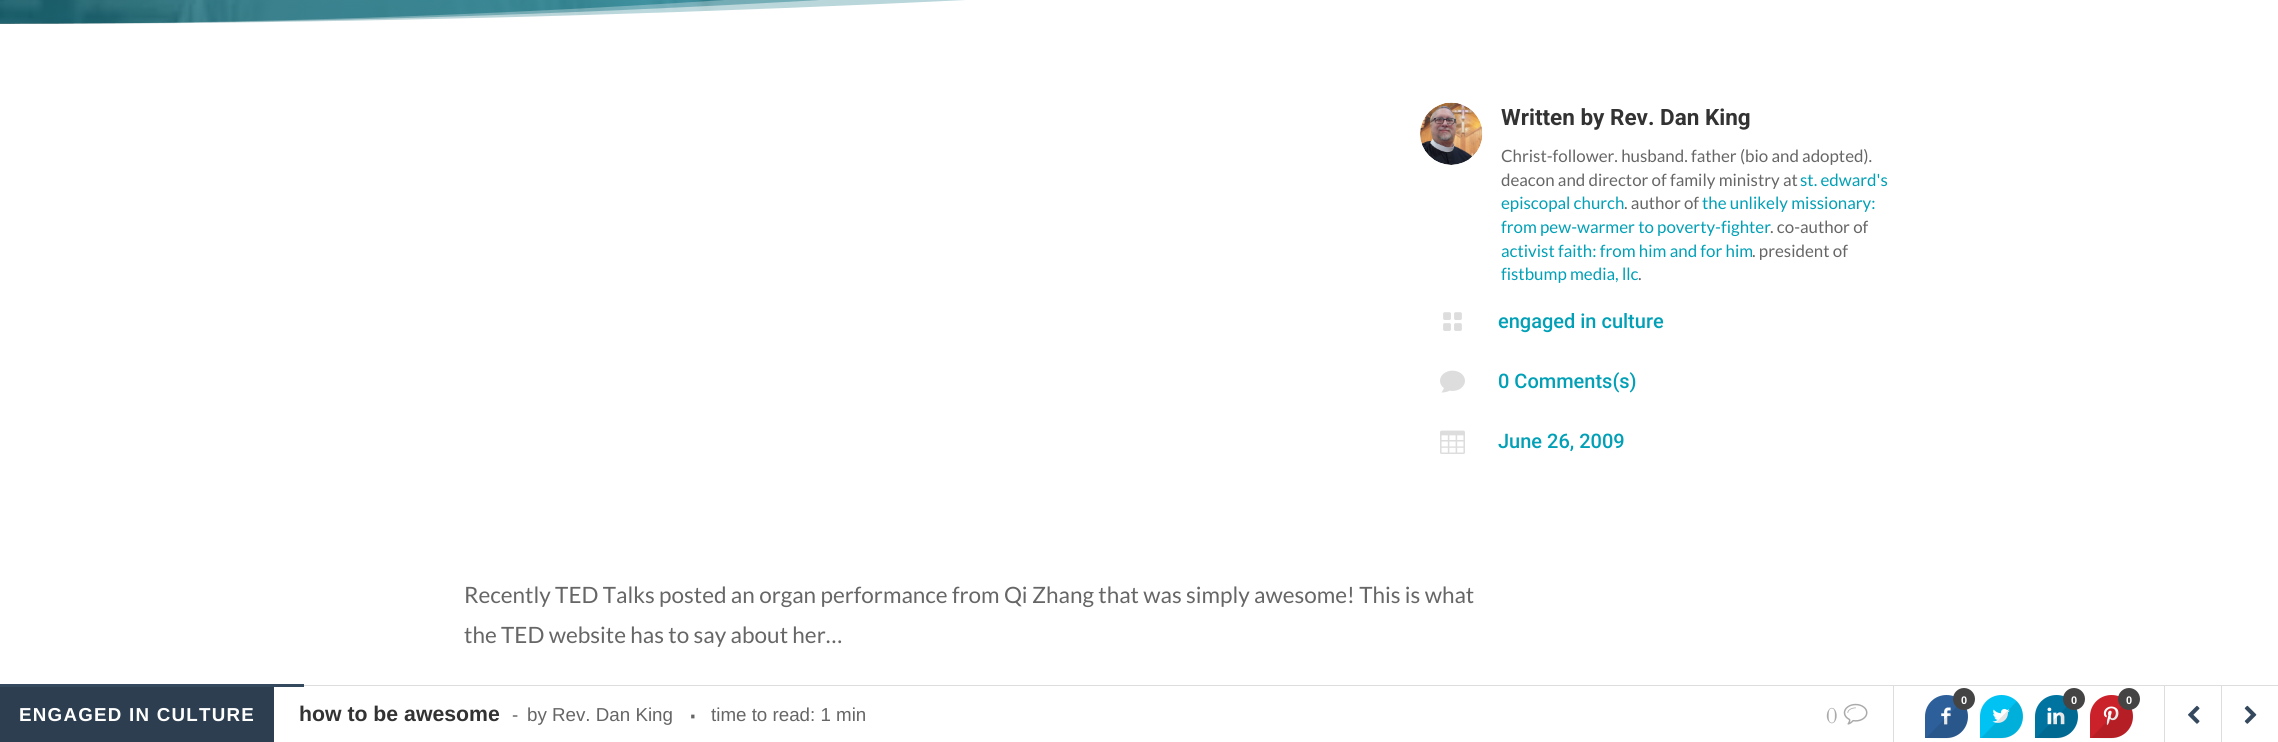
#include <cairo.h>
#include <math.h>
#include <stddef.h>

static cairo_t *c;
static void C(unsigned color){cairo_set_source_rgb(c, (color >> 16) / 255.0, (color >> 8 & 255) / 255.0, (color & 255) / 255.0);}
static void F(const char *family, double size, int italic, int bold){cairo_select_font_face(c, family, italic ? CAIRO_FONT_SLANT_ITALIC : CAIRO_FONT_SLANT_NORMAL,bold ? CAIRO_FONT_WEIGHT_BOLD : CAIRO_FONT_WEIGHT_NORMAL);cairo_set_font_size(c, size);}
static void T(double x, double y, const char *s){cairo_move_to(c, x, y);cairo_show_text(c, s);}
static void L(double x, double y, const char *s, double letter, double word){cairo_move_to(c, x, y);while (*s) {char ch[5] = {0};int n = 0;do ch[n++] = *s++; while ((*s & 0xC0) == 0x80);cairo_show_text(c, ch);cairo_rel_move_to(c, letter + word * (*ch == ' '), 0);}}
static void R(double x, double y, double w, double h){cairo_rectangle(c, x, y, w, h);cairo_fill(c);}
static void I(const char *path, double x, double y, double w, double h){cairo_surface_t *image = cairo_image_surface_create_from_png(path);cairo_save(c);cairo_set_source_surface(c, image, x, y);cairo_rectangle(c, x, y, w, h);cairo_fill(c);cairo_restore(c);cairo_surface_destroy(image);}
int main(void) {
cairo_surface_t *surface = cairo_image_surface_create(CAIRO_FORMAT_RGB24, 2278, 742);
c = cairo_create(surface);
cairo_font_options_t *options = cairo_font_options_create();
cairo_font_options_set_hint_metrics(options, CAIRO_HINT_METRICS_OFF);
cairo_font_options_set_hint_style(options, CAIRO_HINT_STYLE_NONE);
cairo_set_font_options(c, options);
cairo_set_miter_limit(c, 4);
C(0xffffff);
cairo_paint(c);
I("1.png",0,0,966,24);
cairo_set_source_rgba(c,1,1,1,0.3);
cairo_new_path(c);
cairo_move_to(c,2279,24);
cairo_line_to(c,0,24);
cairo_curve_to(c,1259,24,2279,-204,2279,-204);
cairo_close_path(c);
cairo_fill(c);
cairo_set_source_rgba(c,1,1,1,0.5);
cairo_new_path(c);
cairo_move_to(c,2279,24);
cairo_line_to(c,0,24);
cairo_curve_to(c,1259,24,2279,-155,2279,-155);
cairo_close_path(c);
cairo_fill(c);
C(0xffffff);
cairo_new_path(c);
cairo_move_to(c,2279,24);
cairo_line_to(c,0,24);
cairo_curve_to(c,1259,24,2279,-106,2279,-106);
cairo_close_path(c);
cairo_fill(c);
I("2.png",1420,102,63,63);
F("Roboto",22.5,0,1);
C(0x333333);
T(1501,125,"Written by Rev. Dan King");
F("Lato",16.9,0,0);
C(0x666666);
T(1501,162,"Christ-follower. husband. father (bio and adopted).");
T(1501,186,"deacon and director of family ministry at");
C(0x01a0b6);
T(1800,186,"st. edward's");
T(1501,209,"episcopal church");
C(0x666666);
T(1624,209,". author of");
C(0x01a0b6);
T(1702,209,"the unlikely missionary:");
T(1501,233,"from pew-warmer to poverty-fighter");
C(0x666666);
T(1770,233,". co-author of");
C(0x01a0b6);
T(1501,257,"activist faith: from him and for him");
C(0x666666);
T(1752,257,". president of");
C(0x01a0b6);
T(1501,280,"fistbump media, llc");
C(0x666666);
T(1638,280,".");
I("3.png",1443,312,19,19);
F("Roboto Medium",20,0,0);
C(0x01a0b6);
T(1498,328,"engaged in culture");
I("4.png",1440,370,25,23);
T(1498,388,"0 Comments(s)");
I("5.png",1440,430,25,24);
T(1498,448,"June 26, 2009");
F("Lato",22.5,0,0);
C(0x666666);
T(464,603,"Recently TED Talks posted an organ performance from Qi Zhang that was simply awesome! This is what");
T(464,643,"the TED website has to say about her…");
C(0xdddddd);
R(304,685,1974,1);
C(0x34495e);
R(0,684,304,3);
C(0xdddddd);
R(1893,686,1,56);
C(0x2d609b);
cairo_new_path(c);
cairo_move_to(c,1946.5,695);
cairo_curve_to(c,1958.5,695,1968,704.5,1968,716.5);
cairo_curve_to(c,1968,728.5,1958.5,738,1946.5,738);
cairo_line_to(c,1925,738);
cairo_line_to(c,1925,716.5);
cairo_curve_to(c,1925,704.5,1934.5,695,1946.5,695);
cairo_close_path(c);
cairo_fill(c);
I("6.png",1941,707,10,18);
cairo_set_source_rgba(c,0,0,0,0.1);
cairo_new_path(c);
cairo_move_to(c,1926,738);
cairo_line_to(c,1962,701);
cairo_curve_to(c,1973,713,1967,734,1951,738);
cairo_curve_to(c,1944,739,1933,738,1926,738);
cairo_close_path(c);
cairo_fill(c);
C(0x444444);
cairo_arc(c,1964,699,11,0,2 * M_PI);
cairo_fill(c);
F("Liberation Sans",11,0,1);
C(0xffffff);
T(1961,704,"0");
C(0x00c3f3);
cairo_new_path(c);
cairo_move_to(c,2001.5,695);
cairo_curve_to(c,2013.5,695,2023,704.5,2023,716.5);
cairo_curve_to(c,2023,728.5,2013.5,738,2001.5,738);
cairo_line_to(c,1980,738);
cairo_line_to(c,1980,716.5);
cairo_curve_to(c,1980,704.5,1989.5,695,2001.5,695);
cairo_close_path(c);
cairo_fill(c);
I("7.png",1992,708,18,15);
cairo_set_source_rgba(c,0,0,0,0.1);
cairo_new_path(c);
cairo_move_to(c,1981,738);
cairo_line_to(c,2017,701);
cairo_curve_to(c,2028,713,2022,734,2006,738);
cairo_curve_to(c,1999,739,1988,738,1981,738);
cairo_close_path(c);
cairo_fill(c);
C(0x0074a1);
cairo_new_path(c);
cairo_move_to(c,2056.5,695);
cairo_curve_to(c,2068.5,695,2078,704.5,2078,716.5);
cairo_curve_to(c,2078,728.5,2068.5,738,2056.5,738);
cairo_line_to(c,2035,738);
cairo_line_to(c,2035,716.5);
cairo_curve_to(c,2035,704.5,2044.5,695,2056.5,695);
cairo_close_path(c);
cairo_fill(c);
I("8.png",2047,707,18,18);
cairo_set_source_rgba(c,0,0,0,0.1);
cairo_new_path(c);
cairo_move_to(c,2036,738);
cairo_line_to(c,2072,701);
cairo_curve_to(c,2083,713,2077,734,2061,738);
cairo_curve_to(c,2054,739,2043,738,2036,738);
cairo_close_path(c);
cairo_fill(c);
C(0x444444);
cairo_arc(c,2074,699,11,0,2 * M_PI);
cairo_fill(c);
C(0xffffff);
T(2071,704,"0");
C(0xca212a);
cairo_new_path(c);
cairo_move_to(c,2111.5,695);
cairo_curve_to(c,2123.5,695,2133,704.5,2133,716.5);
cairo_curve_to(c,2133,728.5,2123.5,738,2111.5,738);
cairo_line_to(c,2090,738);
cairo_line_to(c,2090,716.5);
cairo_curve_to(c,2090,704.5,2099.5,695,2111.5,695);
cairo_close_path(c);
cairo_fill(c);
I("9.png",2103,706,16,20);
cairo_set_source_rgba(c,0,0,0,0.1);
cairo_new_path(c);
cairo_move_to(c,2091,738);
cairo_line_to(c,2127,701);
cairo_curve_to(c,2138,713,2132,734,2116,738);
cairo_curve_to(c,2109,739,2098,738,2091,738);
cairo_close_path(c);
cairo_fill(c);
C(0x444444);
cairo_arc(c,2129,699,11,0,2 * M_PI);
cairo_fill(c);
C(0xffffff);
T(2126,704,"0");
C(0xdddddd);
R(2164,686,1,56);
I("10.png",2188,705,12,19);
R(2221,686,1,56);
I("11.png",2244,705,13,19);
C(0x2c3e50);
R(0,687,274,55);
F("Liberation Sans",18.75,0,1);
C(0xffffff);
L(19,721,"ENGAGED IN CULTURE",1.25,0);
F("Liberation Sans",21.25,0,1);
C(0x333333);
T(299,721,"how to be awesome");
F("Liberation Sans",18.75,0,0);
C(0x666666);
T(512,721,"-");
T(527,721,"by Rev. Dan King");
F("Liberation Sans",35,0,0);
T(687,726,"·");
F("Liberation Sans",18.75,0,0);
T(711,721,"time to read: 1 min");
F("Cardo",22.5,0,0);
C(0xaaaaaa);
T(1826,723,"0");
I("12.png",1843,703,25,22);
cairo_surface_write_to_png(surface, "o.png");
cairo_font_options_destroy(options);
cairo_destroy(c);
cairo_surface_destroy(surface);
return 0;
}
